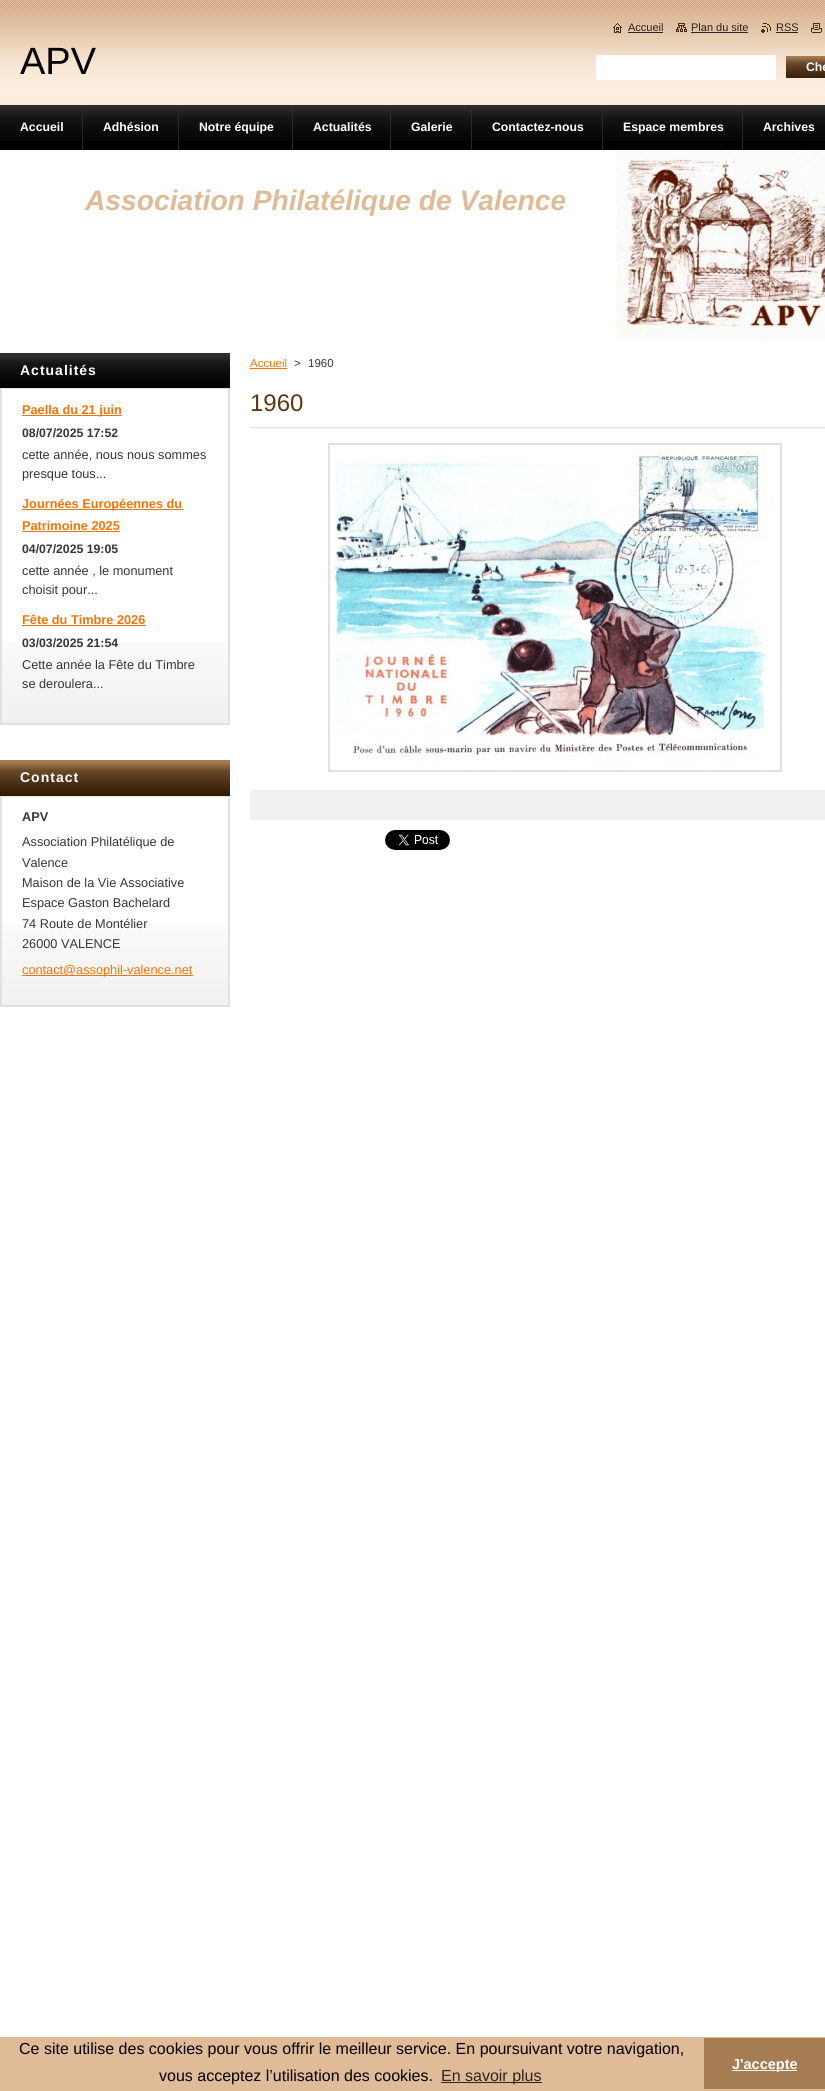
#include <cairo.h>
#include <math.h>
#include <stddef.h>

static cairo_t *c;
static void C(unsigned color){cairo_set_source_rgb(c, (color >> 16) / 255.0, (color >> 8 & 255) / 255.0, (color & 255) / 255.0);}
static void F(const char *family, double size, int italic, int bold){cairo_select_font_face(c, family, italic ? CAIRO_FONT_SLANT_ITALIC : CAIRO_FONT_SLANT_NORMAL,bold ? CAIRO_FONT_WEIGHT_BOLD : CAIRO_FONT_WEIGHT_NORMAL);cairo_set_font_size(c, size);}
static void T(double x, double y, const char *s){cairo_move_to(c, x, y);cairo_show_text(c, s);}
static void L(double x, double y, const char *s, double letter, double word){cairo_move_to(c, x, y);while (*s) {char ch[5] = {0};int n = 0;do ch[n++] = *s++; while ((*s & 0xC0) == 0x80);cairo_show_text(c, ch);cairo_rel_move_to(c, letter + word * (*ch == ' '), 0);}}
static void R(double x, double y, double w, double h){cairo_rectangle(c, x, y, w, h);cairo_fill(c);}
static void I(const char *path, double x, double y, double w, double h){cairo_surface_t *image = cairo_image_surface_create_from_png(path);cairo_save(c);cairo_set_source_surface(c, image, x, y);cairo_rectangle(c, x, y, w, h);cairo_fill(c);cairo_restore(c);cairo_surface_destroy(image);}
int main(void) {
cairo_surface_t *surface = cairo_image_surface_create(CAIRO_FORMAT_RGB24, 825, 2091);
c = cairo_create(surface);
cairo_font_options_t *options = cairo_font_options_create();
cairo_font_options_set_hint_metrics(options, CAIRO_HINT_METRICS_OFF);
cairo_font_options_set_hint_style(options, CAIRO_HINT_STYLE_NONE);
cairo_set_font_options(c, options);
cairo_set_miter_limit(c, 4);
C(0xffffff);
cairo_paint(c);
I("1.png",0,0,825,105);
I("2.png",613,23,9,10);
F("Liberation Sans",11,0,0);
C(0x242424);
T(628,31,"Accueil");
R(628,32,35,1);
I("3.png",676,23,11,9);
T(691,31,"Plan du site");
R(691,32,57,1);
I("4.png",761,23,10,10);
T(776,31,"RSS");
R(776,32,22,1);
I("5.png",811,23,11,10);
F("Liberation Sans",38,0,0);
C(0x000000);
T(20,74,"APV");
C(0xffffff);
R(596,55,180,25);
I("6.png",786,56,39,22);
F("Liberation Sans",12.25,0,1);
T(806,71,"Che");
C(0x000000);
R(0,141,825,9);
I("7.png",0,105,825,36);
C(0x2a2a2a);
R(82,110,1,40);
C(0xffffff);
T(20,131,"Accueil");
C(0x2a2a2a);
R(178,110,1,40);
C(0xffffff);
T(103,131,"Adhésion");
C(0x2a2a2a);
R(292,110,1,40);
C(0xffffff);
T(199,131,"Notre équipe");
C(0x2a2a2a);
R(390,110,1,40);
C(0xffffff);
T(313,131,"Actualités");
C(0x2a2a2a);
R(471,110,1,40);
C(0xffffff);
T(411,131,"Galerie");
C(0x2a2a2a);
R(602,110,1,40);
C(0xffffff);
T(492,131,"Contactez-nous");
C(0x2a2a2a);
R(742,110,1,40);
C(0xffffff);
T(623,131,"Espace membres");
T(763,131,"Archives");
I("8.png",0,150,825,190);
F("Liberation Sans",28.2,1,1);
C(0xdfbb97);
T(85,210,"Association Philatélique de Valence");
I("9.png",2,642,226,81);
C(0x2d2d2d);
R(0,353,230,4);
I("10.png",0,357,230,31);
C(0xe1e1e1);
R(0,388,230,1);
F("Liberation Sans",14,0,1);
C(0xffffff);
L(20,375,"Actualités",1,0);
C(0xe1e1e1);
R(228,389,2,336);
R(0,723,230,2);
R(0,389,2,336);
C(0xf87307);
R(22,415,100,1);
F("Liberation Sans",12.75,0,1);
T(22,414,"Paella du 21 juin");
F("Liberation Sans",12.25,0,1);
C(0x363636);
T(22,437,"08/07/2025 17:52");
F("Liberation Sans",12.75,0,0);
T(22,459,"cette année, nous nous sommes");
T(22,478,"presque tous...");
C(0xf87307);
R(22,509,161,1);
F("Liberation Sans",12.75,0,1);
T(22,508,"Journées Européennes du");
T(22,530,"Patrimoine 2025");
R(22,531,98,1);
F("Liberation Sans",12.25,0,1);
C(0x363636);
T(22,553,"04/07/2025 19:05");
F("Liberation Sans",12.75,0,0);
T(22,575,"cette année , le monument");
T(22,594,"choisit pour...");
F("Liberation Sans",12.75,0,1);
C(0xf87307);
T(22,624,"Fête du Timbre 2026");
R(22,625,124,1);
F("Liberation Sans",12.25,0,1);
C(0x363636);
T(22,647,"03/03/2025 21:54");
F("Liberation Sans",12.75,0,0);
T(22,669,"Cette année la Fête du Timbre");
T(22,688,"se deroulera...");
I("9.png",2,924,226,81);
C(0xa67c52);
R(0,760,230,3);
I("11.png",0,763,230,33);
C(0xe1e1e1);
R(0,796,230,1);
F("Liberation Sans",14,0,1);
C(0xffffff);
L(20,782,"Contact",1,0);
C(0xe1e1e1);
R(228,797,2,210);
R(0,1005,230,2);
R(0,797,2,210);
F("Liberation Sans",12.75,0,1);
C(0x363636);
T(22,821,"APV");
F("Liberation Sans",12.75,0,0);
T(22,846,"Association Philatélique de");
T(22,867,"Valence");
T(22,887,"Maison de la Vie Associative");
T(22,907,"Espace Gaston Bachelard");
T(22,928,"74 Route de Montélier");
T(22,948,"26000 VALENCE");
C(0xf87307);
R(22,975,171,1);
T(22,974,"contact@assophil-valence.net");
F("Liberation Sans",11.5,0,0);
T(250,367,"Accueil");
R(250,368,37,1);
C(0x363636);
T(294,367,">");
T(308,367,"1960");
C(0xe1e1e1);
R(250,427,575,1);
F("Liberation Sans",24,0,0);
C(0x5e3612);
T(250,411,"1960");
cairo_rectangle(c,329,444,452,327);
C(0xe1e1e1);
cairo_stroke(c);
I("12.png",330,445,450,325);
C(0xf1f1f1);
R(250,790,575,30);
I("13.png",385,830,65,20);
C(0xdfbb97);
R(0,2037,825,54);
F("Liberation Sans",16,0,0);
C(0x000000);
T(19,2054,"Ce site utilise des cookies pour vous offrir le meilleur service. En poursuivant votre navigation,");
T(159,2081,"vous acceptez l’utilisation des cookies.");
C(0x2d251e);
R(441,2082,101,1);
T(441,2081,"En savoir plus");
C(0xa67c52);
R(704,2038,121,51);
C(0xffffff);
R(732,2070,65,1);
F("Liberation Sans",14.5,0,1);
T(732,2069,"J'accepte");
cairo_surface_write_to_png(surface, "o.png");
cairo_font_options_destroy(options);
cairo_destroy(c);
cairo_surface_destroy(surface);
return 0;
}
